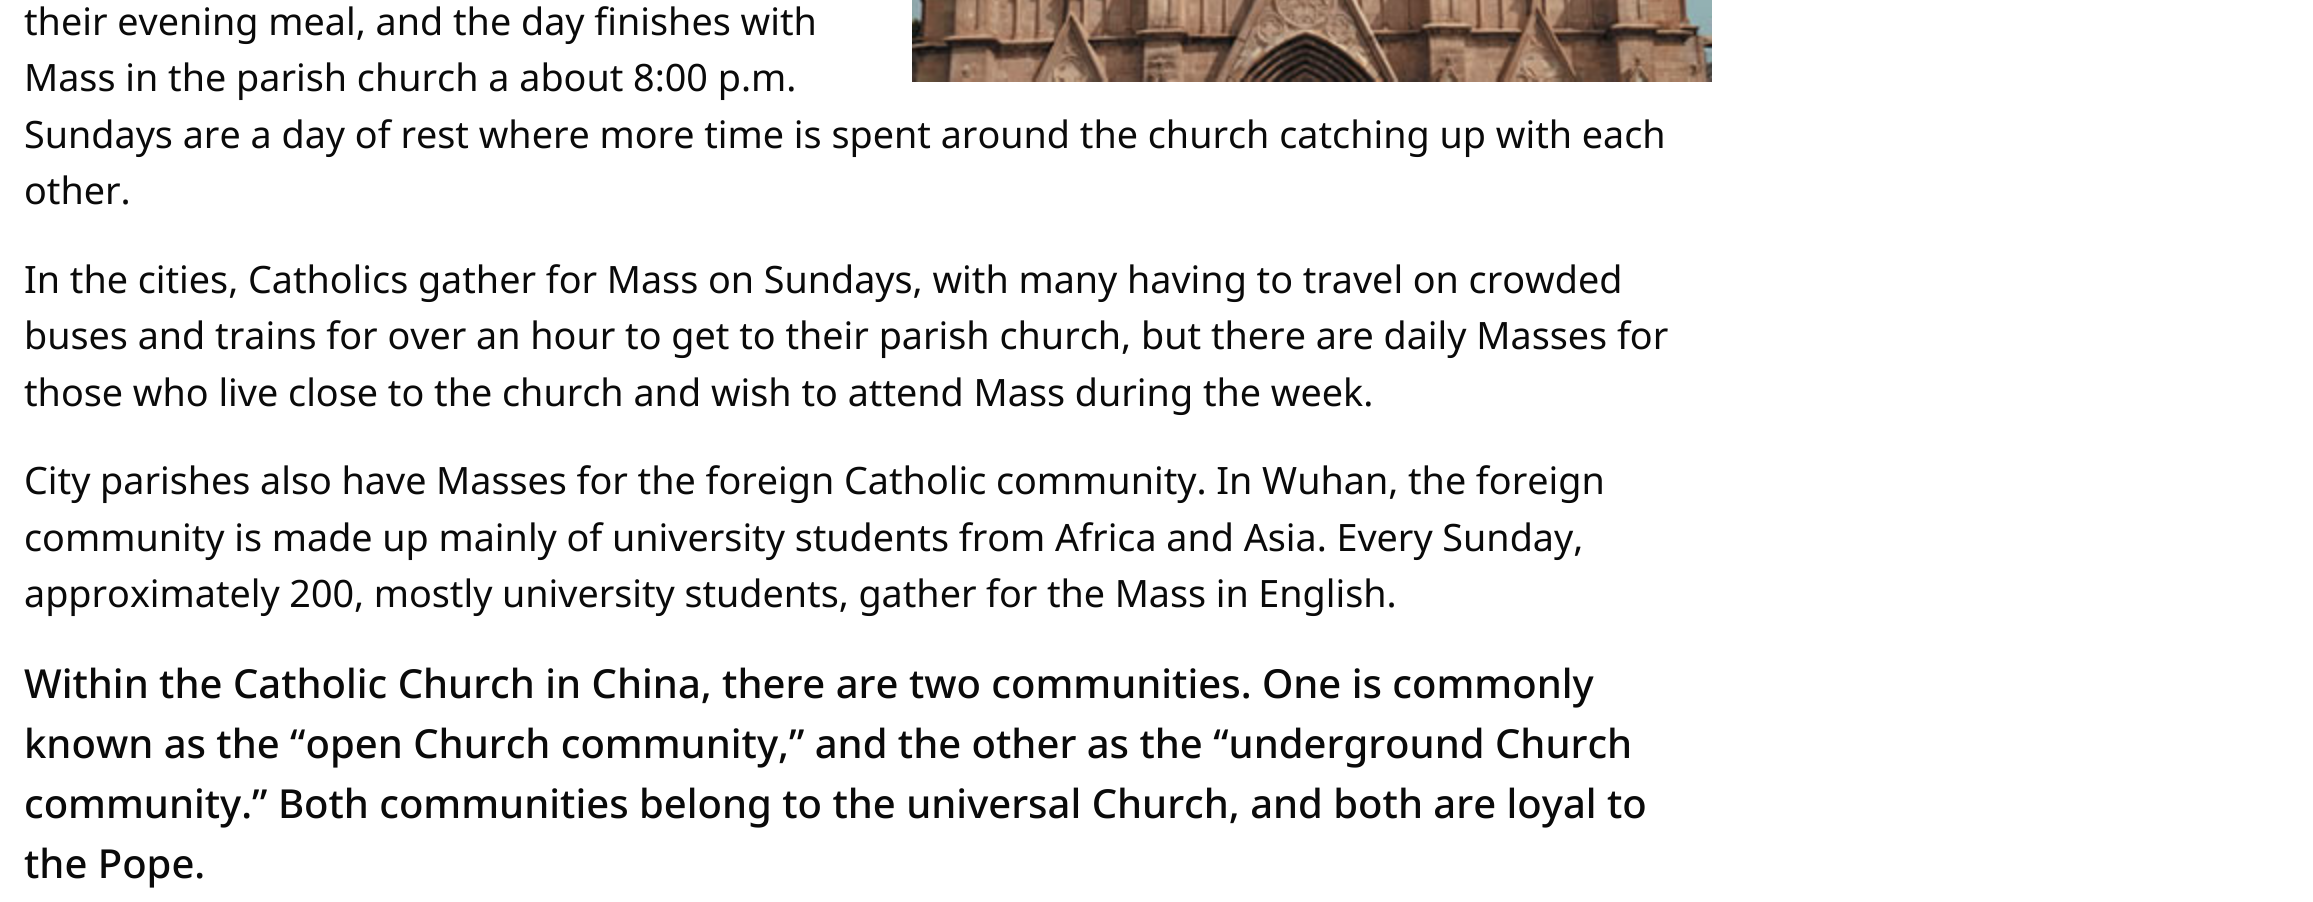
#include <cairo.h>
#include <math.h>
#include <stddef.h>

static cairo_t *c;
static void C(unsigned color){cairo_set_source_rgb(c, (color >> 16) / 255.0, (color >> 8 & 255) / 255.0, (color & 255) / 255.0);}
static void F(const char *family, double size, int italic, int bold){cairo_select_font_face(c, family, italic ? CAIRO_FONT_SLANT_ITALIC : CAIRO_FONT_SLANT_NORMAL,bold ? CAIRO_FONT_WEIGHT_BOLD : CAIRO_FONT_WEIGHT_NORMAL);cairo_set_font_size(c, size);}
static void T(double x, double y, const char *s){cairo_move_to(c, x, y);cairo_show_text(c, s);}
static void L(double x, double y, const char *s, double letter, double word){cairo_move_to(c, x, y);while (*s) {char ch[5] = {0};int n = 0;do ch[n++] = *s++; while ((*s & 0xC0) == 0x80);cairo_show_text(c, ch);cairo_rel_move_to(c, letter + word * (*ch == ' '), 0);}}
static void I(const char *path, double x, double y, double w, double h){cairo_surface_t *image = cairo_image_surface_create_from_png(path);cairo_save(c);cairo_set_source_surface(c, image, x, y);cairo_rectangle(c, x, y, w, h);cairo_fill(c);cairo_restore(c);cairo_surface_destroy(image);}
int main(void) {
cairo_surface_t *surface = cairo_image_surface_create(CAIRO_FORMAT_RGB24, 2313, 902);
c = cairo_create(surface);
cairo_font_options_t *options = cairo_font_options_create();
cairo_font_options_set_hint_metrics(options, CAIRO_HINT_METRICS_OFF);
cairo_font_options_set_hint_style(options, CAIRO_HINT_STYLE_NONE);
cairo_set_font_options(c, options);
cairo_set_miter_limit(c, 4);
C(0xffffff);
cairo_paint(c);
I("1.png",912,0,800,82);
F("Noto Sans",37.7,0,0);
C(0x0a0a0a);
T(24,35,"their evening meal, and the day finishes with");
T(24,91,"Mass in the parish church a about 8:00 p.m.");
T(24,148,"Sundays are a day of rest where more time is spent around the church catching up with each");
T(24,204,"other.");
L(24,293,"In the cities, Catholics gather for Mass on Sundays, with many having to travel on crowded",0,-.1);
T(24,349,"buses and trains for over an hour to get to their parish church, but there are daily Masses for");
T(24,406,"those who live close to the church and wish to attend Mass during the week.");
L(24,494,"City parishes also have Masses for the foreign Catholic community. In Wuhan, the foreign",0,-.1);
L(24,551,"community is made up mainly of university students from Africa and Asia. Every Sunday,",0,-.1);
L(24,607,"approximately 200, mostly university students, gather for the Mass in English.",0,-.25);
F("Noto Sans Medium",40,0,0);
T(24,698,"Within the Catholic Church in China, there are two communities. One is commonly");
T(24,758,"known as the “open Church community,” and the other as the “underground Church");
T(24,818,"community.” Both communities belong to the universal Church, and both are loyal to");
T(24,878,"the Pope.");
cairo_surface_write_to_png(surface, "o.png");
cairo_font_options_destroy(options);
cairo_destroy(c);
cairo_surface_destroy(surface);
return 0;
}
